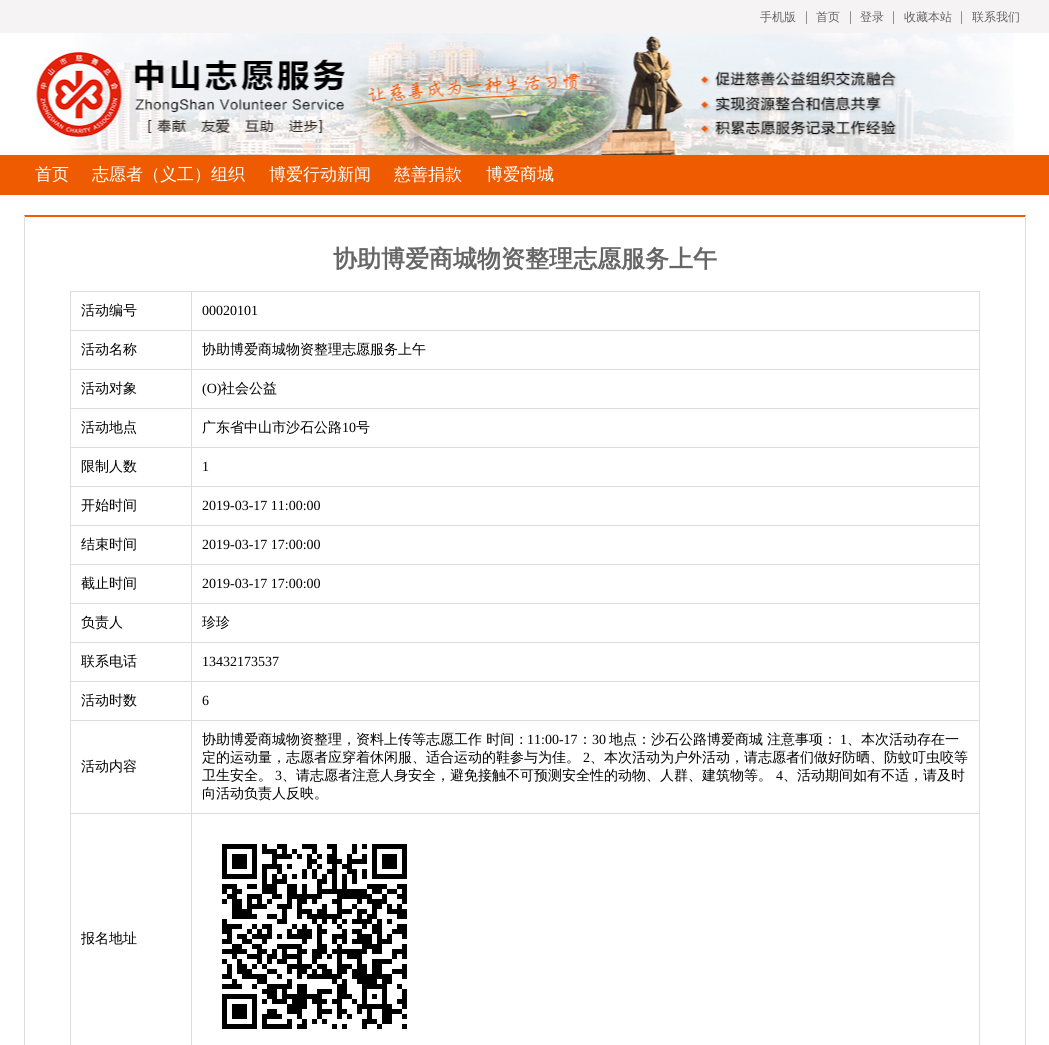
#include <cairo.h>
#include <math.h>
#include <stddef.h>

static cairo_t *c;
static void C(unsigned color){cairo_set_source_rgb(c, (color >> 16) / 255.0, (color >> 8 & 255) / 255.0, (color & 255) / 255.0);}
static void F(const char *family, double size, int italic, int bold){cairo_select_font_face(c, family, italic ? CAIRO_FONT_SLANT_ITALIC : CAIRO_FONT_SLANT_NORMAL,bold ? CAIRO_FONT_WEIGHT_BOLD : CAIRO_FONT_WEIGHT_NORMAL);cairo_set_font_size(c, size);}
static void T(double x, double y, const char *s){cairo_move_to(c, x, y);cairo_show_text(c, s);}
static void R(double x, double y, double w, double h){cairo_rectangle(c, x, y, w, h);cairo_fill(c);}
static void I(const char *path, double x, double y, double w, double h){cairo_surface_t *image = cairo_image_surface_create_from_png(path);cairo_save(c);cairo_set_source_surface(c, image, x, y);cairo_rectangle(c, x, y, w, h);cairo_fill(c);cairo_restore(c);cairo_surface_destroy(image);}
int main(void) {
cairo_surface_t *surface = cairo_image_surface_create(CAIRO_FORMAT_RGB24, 1049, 1045);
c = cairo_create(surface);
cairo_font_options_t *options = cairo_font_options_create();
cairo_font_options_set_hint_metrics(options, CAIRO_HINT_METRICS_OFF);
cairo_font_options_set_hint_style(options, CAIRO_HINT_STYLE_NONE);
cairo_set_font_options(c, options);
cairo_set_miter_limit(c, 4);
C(0xffffff);
cairo_paint(c);
C(0xf5f3f3);
R(0,0,1049,33);
F("WenQuanYi Zen Hei Medium",12,0,0);
C(0x666666);
T(760,21,"手机版");
F("Liberation Serif",14,0,0);
T(805,21,"|");
F("WenQuanYi Zen Hei Medium",12,0,0);
T(816,21,"首页");
F("Liberation Serif",14,0,0);
T(849,21,"|");
F("WenQuanYi Zen Hei Medium",12,0,0);
T(860,21,"登录");
F("Liberation Serif",14,0,0);
T(892,21,"|");
F("WenQuanYi Zen Hei Medium",12,0,0);
T(904,21,"收藏本站");
F("Liberation Serif",14,0,0);
T(960,21,"|");
F("WenQuanYi Zen Hei Medium",12,0,0);
T(972,21,"联系我们");
I("1.png",36,33,978,122);
C(0xef5b00);
R(0,155,1049,40);
F("WenQuanYi Zen Hei Medium",17,0,0);
C(0xffffff);
T(35,180,"首页");
T(92,180,"志愿者（义工）组织");
T(269,180,"博爱行动新闻");
T(394,180,"慈善捐款");
T(486,180,"博爱商城");
C(0xef5b00);
cairo_new_path(c);
cairo_move_to(c,24,215);
cairo_line_to(c,1026,215);
cairo_line_to(c,1025,217);
cairo_line_to(c,25,217);
cairo_close_path(c);
cairo_fill(c);
C(0xdddddd);
cairo_new_path(c);
cairo_move_to(c,1026,215);
cairo_line_to(c,1026,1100);
cairo_line_to(c,1025,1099);
cairo_line_to(c,1025,217);
cairo_close_path(c);
cairo_fill(c);
cairo_new_path(c);
cairo_move_to(c,24,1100);
cairo_line_to(c,24,215);
cairo_line_to(c,25,217);
cairo_line_to(c,25,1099);
cairo_close_path(c);
cairo_fill(c);
F("WenQuanYi Zen Hei",24,0,1);
C(0x666666);
T(333,267,"协助博爱商城物资整理志愿服务上午");
C(0xdddddd);
R(70,291,910,1);
R(979,291,1,754);
R(70,291,1,754);
F("WenQuanYi Zen Hei Medium",14,0,0);
C(0x000000);
T(81,315,"活动编号");
C(0xdddddd);
R(191,330,789,1);
R(191,369,789,1);
R(191,408,789,1);
R(191,447,789,1);
R(191,486,789,1);
R(191,525,789,1);
R(191,564,789,1);
R(191,603,789,1);
R(191,642,789,1);
R(191,681,789,1);
R(191,720,789,1);
R(191,813,789,1);
R(191,813,1,232);
R(70,813,122,1);
R(191,720,1,94);
R(70,720,122,1);
R(191,681,1,40);
R(70,681,122,1);
R(191,642,1,40);
R(70,642,122,1);
R(191,603,1,40);
R(70,603,122,1);
R(191,564,1,40);
R(70,564,122,1);
R(191,525,1,40);
R(70,525,122,1);
R(191,486,1,40);
R(70,486,122,1);
R(191,447,1,40);
R(70,447,122,1);
R(191,408,1,40);
R(70,408,122,1);
R(191,369,1,40);
R(70,369,122,1);
R(191,330,1,40);
R(70,330,122,1);
R(191,291,1,40);
F("Liberation Serif",14,0,0);
C(0x000000);
T(202,315,"00020101");
F("WenQuanYi Zen Hei Medium",14,0,0);
T(81,354,"活动名称");
T(202,354,"协助博爱商城物资整理志愿服务上午");
T(81,393,"活动对象");
F("Liberation Serif",14,0,0);
T(202,393,"(O)");
F("WenQuanYi Zen Hei Medium",14,0,0);
T(221,393,"社会公益");
T(81,432,"活动地点");
T(202,432,"广东省中山市沙石公路");
F("Liberation Serif",14,0,0);
T(342,432,"10");
F("WenQuanYi Zen Hei Medium",14,0,0);
T(356,432,"号");
T(81,471,"限制人数");
F("Liberation Serif",14,0,0);
T(202,471,"1");
F("WenQuanYi Zen Hei Medium",14,0,0);
T(81,510,"开始时间");
F("Liberation Serif",14,0,0);
T(202,510,"2019-03-17 11:00:00");
F("WenQuanYi Zen Hei Medium",14,0,0);
T(81,549,"结束时间");
F("Liberation Serif",14,0,0);
T(202,549,"2019-03-17 17:00:00");
F("WenQuanYi Zen Hei Medium",14,0,0);
T(81,588,"截止时间");
F("Liberation Serif",14,0,0);
T(202,588,"2019-03-17 17:00:00");
F("WenQuanYi Zen Hei Medium",14,0,0);
T(81,627,"负责人");
T(202,627,"珍珍");
T(81,666,"联系电话");
F("Liberation Serif",14,0,0);
T(202,666,"13432173537");
F("WenQuanYi Zen Hei Medium",14,0,0);
T(81,705,"活动时数");
F("Liberation Serif",14,0,0);
T(202,705,"6");
F("WenQuanYi Zen Hei Medium",14,0,0);
T(81,771,"活动内容");
T(202,744,"协助博爱商城物资整理，资料上传等志愿工作 时间：");
F("Liberation Serif",14,0,0);
T(527,744,"11:00-17");
F("WenQuanYi Zen Hei Medium",14,0,0);
T(578,744,"：");
F("Liberation Serif",14,0,0);
T(592,744,"30");
F("WenQuanYi Zen Hei Medium",14,0,0);
T(609,744,"地点：沙石公路博爱商城");
T(767,744,"注意事项：");
F("Liberation Serif",14,0,0);
T(840,744,"1");
F("WenQuanYi Zen Hei Medium",14,0,0);
T(847,744,"、本次活动存在一");
T(202,762,"定的运动量，志愿者应穿着休闲服、适合运动的鞋参与为佳。");
F("Liberation Serif",14,0,0);
T(583,762,"2");
F("WenQuanYi Zen Hei Medium",14,0,0);
T(590,762,"、本次活动为户外活动，请志愿者们做好防晒、防蚊叮虫咬等");
T(202,780,"卫生安全。");
F("Liberation Serif",14,0,0);
T(275,780,"3");
F("WenQuanYi Zen Hei Medium",14,0,0);
T(282,780,"、请志愿者注意人身安全，避免接触不可预测安全性的动物、人群、建筑物等。");
F("Liberation Serif",14,0,0);
T(776,780,"4");
F("WenQuanYi Zen Hei Medium",14,0,0);
T(783,780,"、活动期间如有不适，请及时");
T(202,798,"向活动负责人反映。");
T(81,943,"报名地址");
I("2.png",222,844,185,185);
cairo_surface_write_to_png(surface, "o.png");
cairo_font_options_destroy(options);
cairo_destroy(c);
cairo_surface_destroy(surface);
return 0;
}
